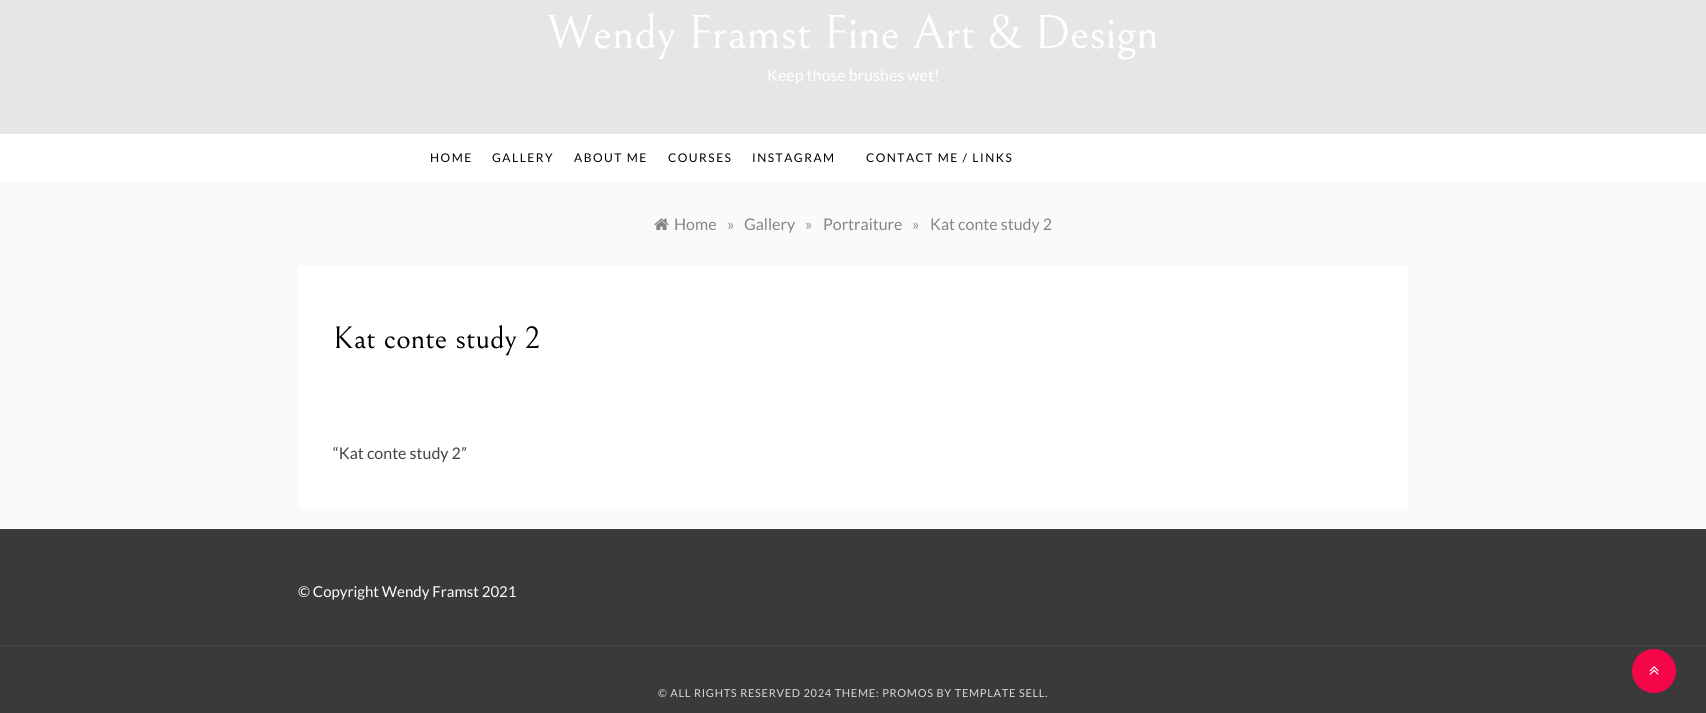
#include <cairo.h>
#include <math.h>
#include <stddef.h>

static cairo_t *c;
static void C(unsigned color){cairo_set_source_rgb(c, (color >> 16) / 255.0, (color >> 8 & 255) / 255.0, (color & 255) / 255.0);}
static void F(const char *family, double size, int italic, int bold){cairo_select_font_face(c, family, italic ? CAIRO_FONT_SLANT_ITALIC : CAIRO_FONT_SLANT_NORMAL,bold ? CAIRO_FONT_WEIGHT_BOLD : CAIRO_FONT_WEIGHT_NORMAL);cairo_set_font_size(c, size);}
static void T(double x, double y, const char *s){cairo_move_to(c, x, y);cairo_show_text(c, s);}
static void L(double x, double y, const char *s, double letter, double word){cairo_move_to(c, x, y);while (*s) {char ch[5] = {0};int n = 0;do ch[n++] = *s++; while ((*s & 0xC0) == 0x80);cairo_show_text(c, ch);cairo_rel_move_to(c, letter + word * (*ch == ' '), 0);}}
static void R(double x, double y, double w, double h){cairo_rectangle(c, x, y, w, h);cairo_fill(c);}
static void I(const char *path, double x, double y, double w, double h){cairo_surface_t *image = cairo_image_surface_create_from_png(path);cairo_save(c);cairo_set_source_surface(c, image, x, y);cairo_rectangle(c, x, y, w, h);cairo_fill(c);cairo_restore(c);cairo_surface_destroy(image);}
int main(void) {
cairo_surface_t *surface = cairo_image_surface_create(CAIRO_FORMAT_RGB24, 1706, 713);
c = cairo_create(surface);
cairo_font_options_t *options = cairo_font_options_create();
cairo_font_options_set_hint_metrics(options, CAIRO_HINT_METRICS_OFF);
cairo_font_options_set_hint_style(options, CAIRO_HINT_STYLE_NONE);
cairo_set_font_options(c, options);
cairo_set_miter_limit(c, 4);
C(0xfafafa);
cairo_paint(c);
C(0xe6e6e6);
R(0,0,1706,134);
F("Bellefair",48,0,0);
C(0xffffff);
T(547,48,"Wendy Framst Fine Art & Design");
F("Lato",16,0,0);
T(767,81,"Keep those brushes wet!");
R(0,134,1706,48);
F("Lato",12,0,0);
C(0x000000);
L(430,162,"HOME",1.5,0);
L(492,162,"GALLERY",1.5,0);
L(574,162,"ABOUT ME",1.5,0);
L(668,162,"COURSES",1.5,0);
L(752,162,"INSTAGRAM",1.5,0);
L(866,162,"CONTACT ME / LINKS",1.5,0);
I("1.png",654,218,15,12);
F("Lato",16,0,0);
C(0x858585);
T(674,230,"Home");
C(0x8d97a1);
T(727,230,"»");
C(0x858585);
T(744,230,"Gallery");
C(0x8d97a1);
T(805,230,"»");
C(0x858585);
T(823,230,"Portraiture");
C(0x8d97a1);
T(912,230,"»");
C(0x858585);
T(930,230,"Kat conte study 2");
C(0xffffff);
R(298,266,1110,243);
F("Bellefair",31.25,0,0);
C(0x000000);
T(333,348,"Kat conte study 2");
F("Lato",16,0,0);
C(0x434343);
T(333,459,"“Kat conte study 2”");
C(0x3a3a3a);
R(0,529,1706,184);
F("Lato",15,0,0);
C(0xffffff);
T(298,597,"© Copyright Wendy Framst 2021");
C(0x464646);
R(0,645,1706,1);
F("Lato",11,0,0);
C(0xd8d8d8);
L(658,697,"© ALL RIGHTS RESERVED 2024 THEME: PROMOS BY TEMPLATE SELL.",.7,0);
C(0xf50649);
cairo_new_path(c);
cairo_arc(c,1654,671,22,0,2 * M_PI);
cairo_fill(c);
I("2.png",1649,666,10,9);
cairo_surface_write_to_png(surface, "o.png");
cairo_font_options_destroy(options);
cairo_destroy(c);
cairo_surface_destroy(surface);
return 0;
}
